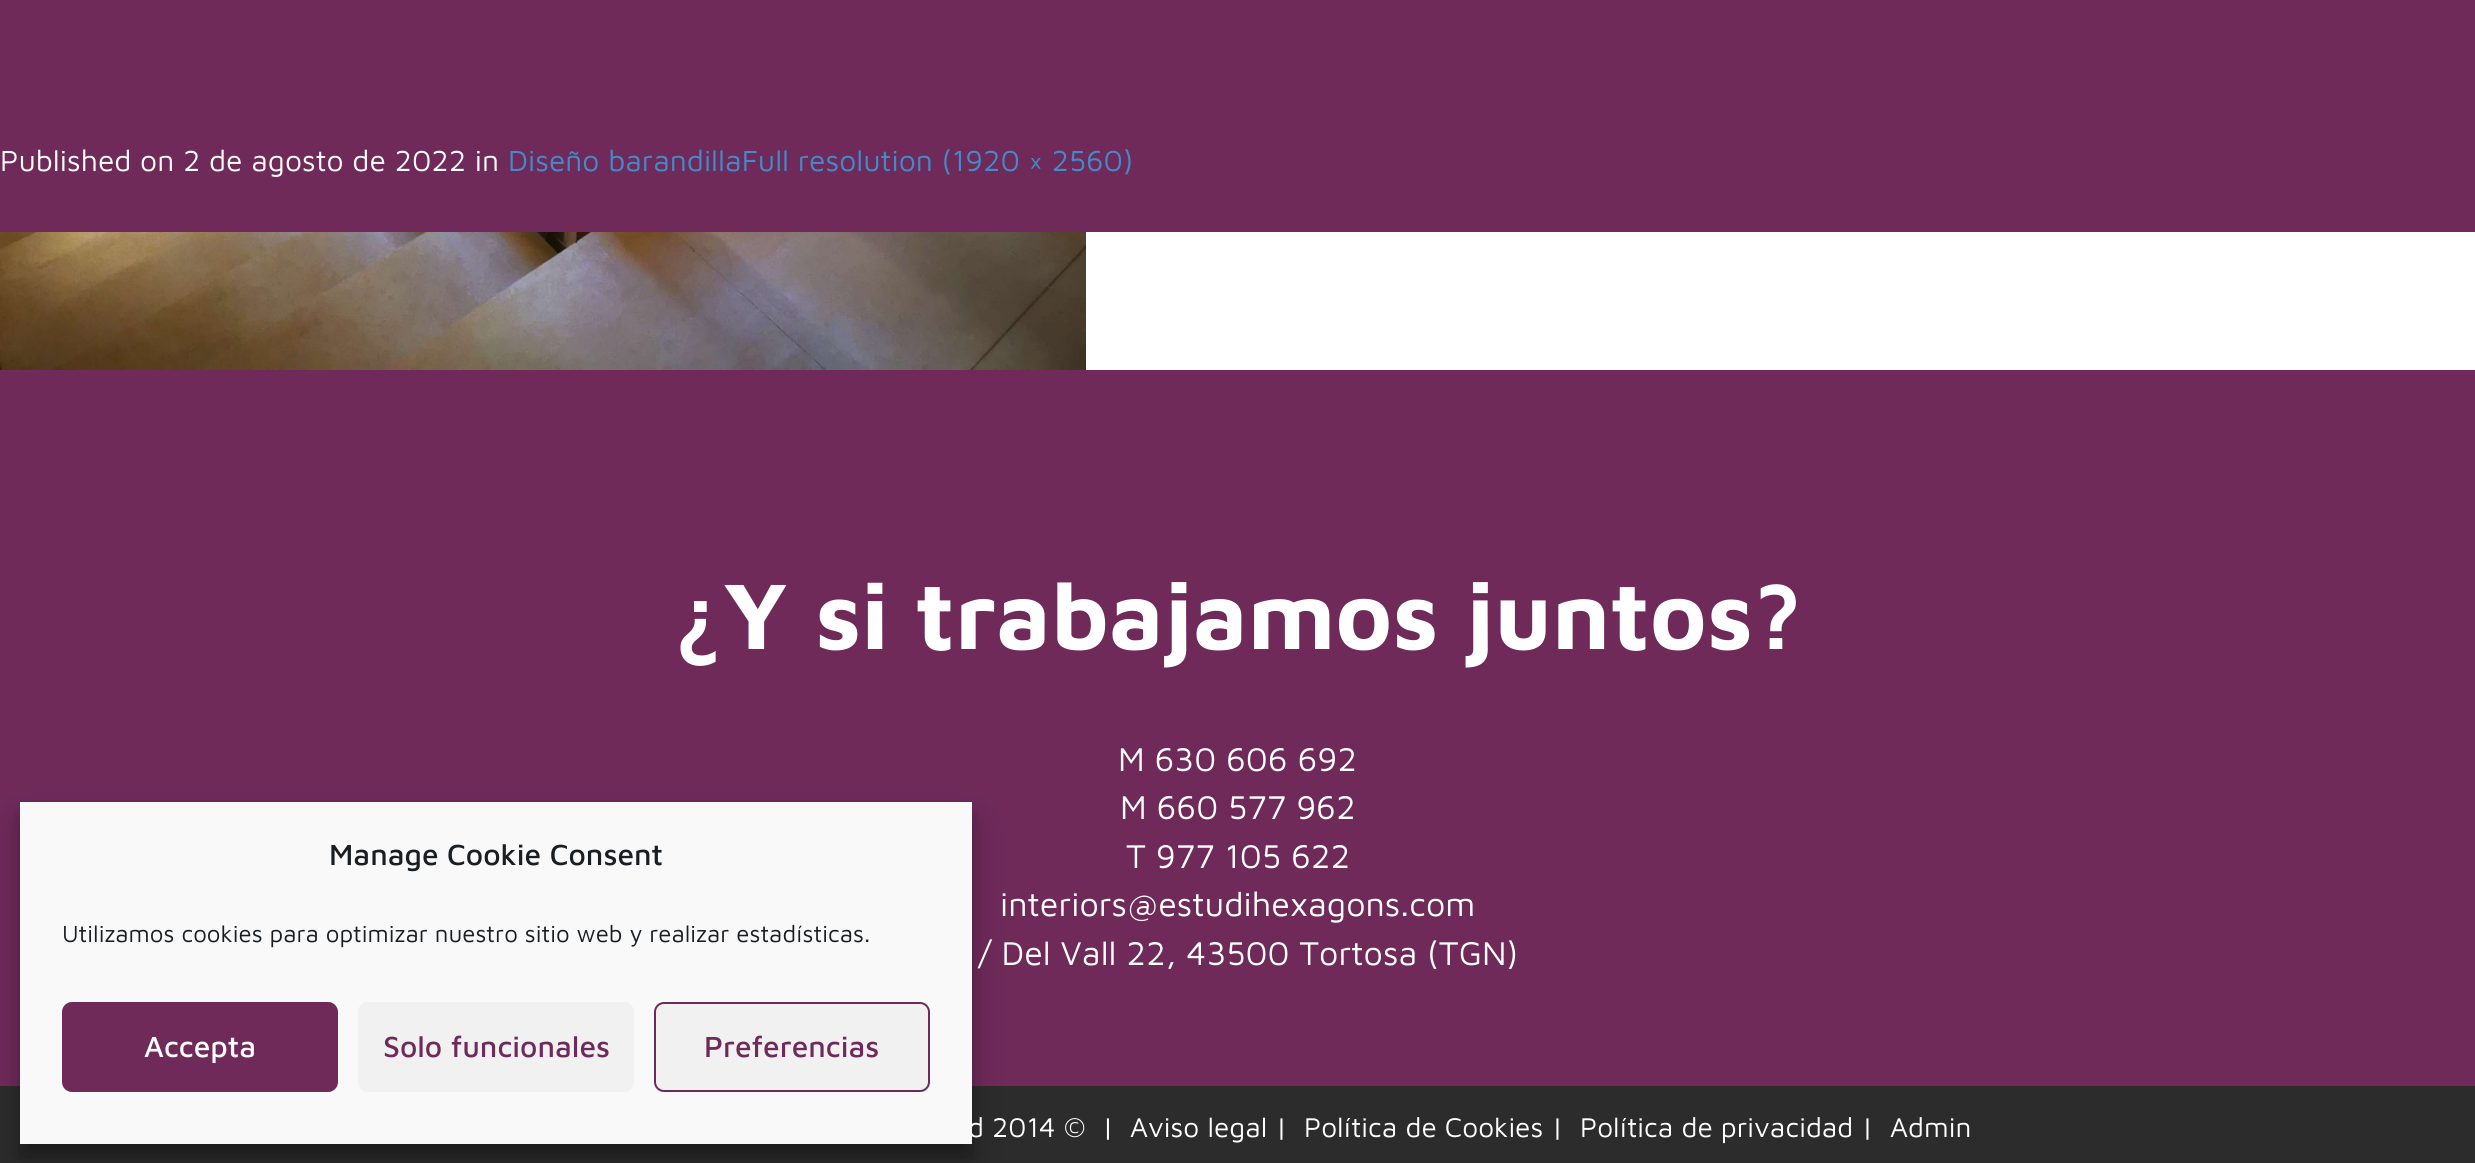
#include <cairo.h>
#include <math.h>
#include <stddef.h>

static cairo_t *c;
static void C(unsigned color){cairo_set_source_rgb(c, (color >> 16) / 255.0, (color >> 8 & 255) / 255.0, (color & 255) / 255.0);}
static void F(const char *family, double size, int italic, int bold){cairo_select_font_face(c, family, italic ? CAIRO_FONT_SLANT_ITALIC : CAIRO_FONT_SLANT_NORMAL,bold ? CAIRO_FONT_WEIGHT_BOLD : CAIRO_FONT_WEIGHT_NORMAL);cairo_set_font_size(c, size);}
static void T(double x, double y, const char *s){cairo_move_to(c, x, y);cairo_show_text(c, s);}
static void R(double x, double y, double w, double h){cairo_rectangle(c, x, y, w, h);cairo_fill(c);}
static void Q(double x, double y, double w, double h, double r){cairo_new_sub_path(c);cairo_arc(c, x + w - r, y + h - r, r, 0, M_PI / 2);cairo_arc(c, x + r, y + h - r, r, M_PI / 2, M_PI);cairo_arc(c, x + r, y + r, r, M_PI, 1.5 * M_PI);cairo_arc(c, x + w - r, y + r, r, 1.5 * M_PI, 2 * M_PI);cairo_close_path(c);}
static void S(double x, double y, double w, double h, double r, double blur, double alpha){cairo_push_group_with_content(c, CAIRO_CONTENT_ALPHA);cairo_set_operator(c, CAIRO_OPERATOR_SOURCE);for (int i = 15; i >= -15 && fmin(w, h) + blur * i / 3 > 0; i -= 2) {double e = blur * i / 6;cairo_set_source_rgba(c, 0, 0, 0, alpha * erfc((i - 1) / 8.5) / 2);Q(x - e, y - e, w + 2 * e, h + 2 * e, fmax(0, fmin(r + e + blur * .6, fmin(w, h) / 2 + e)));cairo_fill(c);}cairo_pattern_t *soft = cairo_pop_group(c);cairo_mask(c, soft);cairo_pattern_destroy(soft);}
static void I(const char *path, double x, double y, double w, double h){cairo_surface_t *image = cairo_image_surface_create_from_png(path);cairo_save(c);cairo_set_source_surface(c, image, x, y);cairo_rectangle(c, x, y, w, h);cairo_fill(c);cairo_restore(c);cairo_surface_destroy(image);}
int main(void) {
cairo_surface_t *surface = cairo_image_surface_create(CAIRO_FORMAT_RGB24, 2475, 1163);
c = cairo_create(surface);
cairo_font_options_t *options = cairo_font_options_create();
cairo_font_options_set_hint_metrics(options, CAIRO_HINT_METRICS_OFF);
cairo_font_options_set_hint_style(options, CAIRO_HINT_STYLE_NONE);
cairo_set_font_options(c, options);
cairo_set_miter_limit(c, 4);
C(0xffffff);
cairo_paint(c);
C(0x6f2a5a);
R(0,0,2475,232);
F("Maven Pro",30,0,0);
C(0xffffff);
T(0,171,"Published on 2 de agosto de 2022 in");
C(0x428bca);
T(508,171,"Diseño barandillaFull resolution (1920 × 2560)");
I("1.png",0,232,1086,138);
C(0x6f2a5a);
R(0,370,2475,716);
C(0x2c2c2c);
R(0,1086,2475,77);
C(0x000000);
S(20,814,952,342,0,6,.23);
S(20,822,952,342,0,20,.19);
F("Maven Pro",28,0,0);
C(0xffffff);
T(968,1137,"d 2014 ©  |");
C(0xf9f9f9);
R(20,802,952,342);
F("Maven Pro Medium",30,0,0);
C(0x191e23);
T(329,865,"Manage Cookie Consent");
F("Maven Pro",24,0,0);
T(62,942,"Utilizamos cookies para optimizar nuestro sitio web y realizar estadísticas.");
C(0x6f2a5a);
Q(63,1003,274,88,9);
cairo_fill_preserve(c);
cairo_stroke(c);
F("Maven Pro Medium",30,0,0);
C(0xffffff);
T(144,1057,"Accepta");
C(0xf1f1f1);
Q(358,1002,276,90,10);
cairo_fill(c);
C(0x6f2a5a);
T(383,1057,"Solo funcionales");
C(0xf1f1f1);
Q(655,1003,274,88,9);
cairo_fill_preserve(c);
C(0x6f2a5a);
cairo_stroke(c);
T(704,1057,"Preferencias");
F("Maven Pro",96,0,1);
C(0xffffff);
T(673,649,"¿Y si trabajamos juntos?");
F("Maven Pro",34,0,0);
T(1118,771,"M 630 606 692");
T(1120,819,"M 660 577 962");
T(1126,868,"T 977 105 622");
T(1000,916,"interiors@estudihexagons.com");
T(978,965,"/ Del Vall 22, 43500 Tortosa (TGN)");
F("Maven Pro",28,0,0);
T(1130,1137,"Aviso legal |");
T(1304,1137,"Política de Cookies |");
T(1580,1137,"Política de privacidad |");
T(1890,1137,"Admin");
cairo_surface_write_to_png(surface, "o.png");
cairo_font_options_destroy(options);
cairo_destroy(c);
cairo_surface_destroy(surface);
return 0;
}
